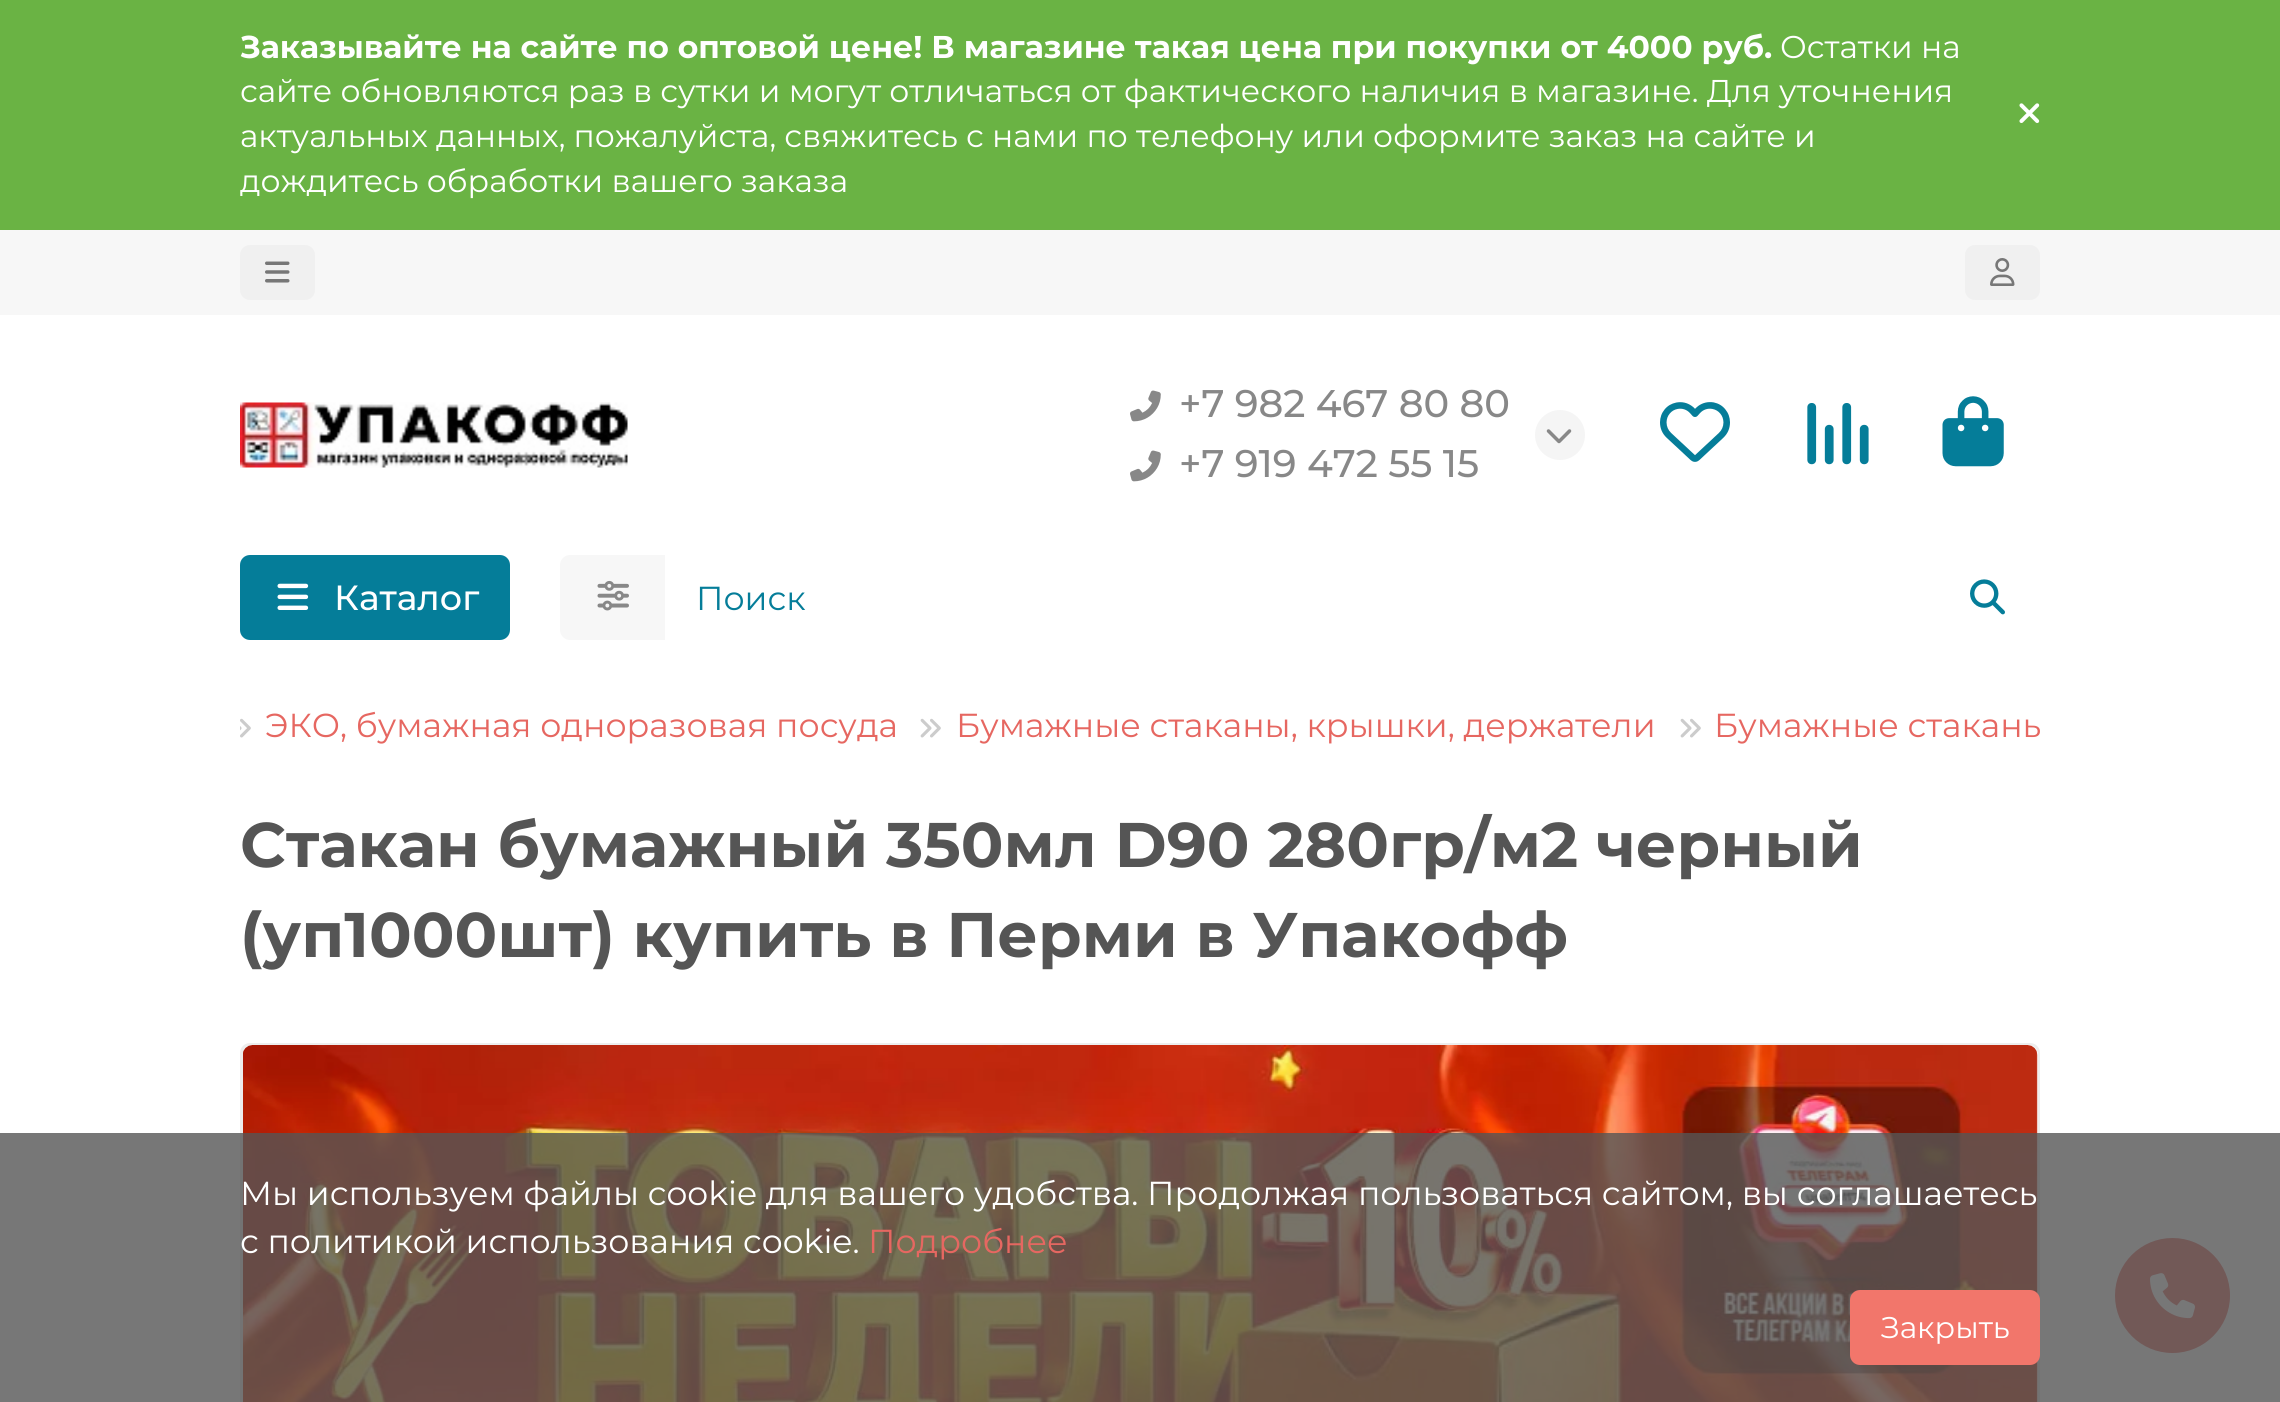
#include <cairo.h>
#include <math.h>
#include <stddef.h>

static cairo_t *c;
static void C(unsigned color){cairo_set_source_rgb(c, (color >> 16) / 255.0, (color >> 8 & 255) / 255.0, (color & 255) / 255.0);}
static void F(const char *family, double size, int italic, int bold){cairo_select_font_face(c, family, italic ? CAIRO_FONT_SLANT_ITALIC : CAIRO_FONT_SLANT_NORMAL,bold ? CAIRO_FONT_WEIGHT_BOLD : CAIRO_FONT_WEIGHT_NORMAL);cairo_set_font_size(c, size);}
static void T(double x, double y, const char *s){cairo_move_to(c, x, y);cairo_show_text(c, s);}
static void R(double x, double y, double w, double h){cairo_rectangle(c, x, y, w, h);cairo_fill(c);}
static void Q(double x, double y, double w, double h, double r){cairo_new_sub_path(c);cairo_arc(c, x + w - r, y + h - r, r, 0, M_PI / 2);cairo_arc(c, x + r, y + h - r, r, M_PI / 2, M_PI);cairo_arc(c, x + r, y + r, r, M_PI, 1.5 * M_PI);cairo_arc(c, x + w - r, y + r, r, 1.5 * M_PI, 2 * M_PI);cairo_close_path(c);}
static void I(const char *path, double x, double y, double w, double h){cairo_surface_t *image = cairo_image_surface_create_from_png(path);cairo_save(c);cairo_set_source_surface(c, image, x, y);cairo_rectangle(c, x, y, w, h);cairo_fill(c);cairo_restore(c);cairo_surface_destroy(image);}
int main(void) {
cairo_surface_t *surface = cairo_image_surface_create(CAIRO_FORMAT_RGB24, 2280, 1402);
c = cairo_create(surface);
cairo_font_options_t *options = cairo_font_options_create();
cairo_font_options_set_hint_metrics(options, CAIRO_HINT_METRICS_OFF);
cairo_font_options_set_hint_style(options, CAIRO_HINT_STYLE_NONE);
cairo_set_font_options(c, options);
cairo_set_miter_limit(c, 4);
C(0xffffff);
cairo_paint(c);
C(0x6ab344);
R(0,0,2280,230);
F("Montserrat",31.5,0,1);
C(0xffffff);
T(240,58,"Заказывайте на сайте по оптовой цене! В магазине такая цена при покупки от 4000 руб.");
F("Montserrat",31.5,0,0);
T(1780,58,"Остатки на");
T(240,102,"сайте обновляются раз в сутки и могут отличаться от фактического наличия в магазине. Для уточнения");
T(240,147,"актуальных данных, пожалуйста, свяжитесь с нами по телефону или оформите заказ на сайте и");
T(240,192,"дождитесь обработки вашего заказа");
I("1.png",2019,103,21,20);
C(0xf7f7f7);
R(0,230,2280,85);
C(0xf0f0f0);
Q(240,245,75,55,10);
cairo_fill(c);
I("2.png",265,261,25,22);
Q(1965,245,75,55,10);
cairo_fill(c);
I("3.png",1990,258,25,28);
I("4.png",240,402,388,66);
I("5.png",1130,390,31,32);
F("Montserrat Medium",38.5,0,0);
C(0x888888);
T(1179,417,"+7 982 467 80 80");
C(0xf5f5f5);
cairo_new_path(c);
cairo_arc(c,1560,435,25,0,2 * M_PI);
cairo_fill(c);
I("6.png",1546,429,26,15);
I("5.png",1130,450,31,32);
C(0x888888);
T(1179,477,"+7 919 472 55 15");
I("7.png",1660,402,70,60);
I("8.png",1807,403,62,62);
I("9.png",1942,396,62,71);
C(0x057d99);
Q(240,555,270,85,10);
cairo_fill(c);
I("10.png",277,583,32,27);
F("Montserrat Medium",35,0,0);
C(0xffffff);
T(334,610,"Каталог");
C(0xf7f7f7);
cairo_new_path(c);
cairo_move_to(c,570,555);
cairo_line_to(c,665,555);
cairo_line_to(c,665,640);
cairo_line_to(c,570,640);
cairo_curve_to(c,564.5,640,560,635.5,560,630);
cairo_line_to(c,560,565);
cairo_curve_to(c,560,559.5,564.5,555,570,555);
cairo_close_path(c);
cairo_fill(c);
I("11.png",597,580,32,31);
F("Montserrat",33.25,0,0);
C(0x057d99);
T(696,610,"Поиск");
I("12.png",1970,579,35,36);
I("13.png",240,718,11,20);
C(0xe66761);
T(265,737,"ЭКО, бумажная одноразовая посуда");
I("14.png",920,718,21,20);
T(956,737,"Бумажные стаканы, крышки, держатели");
I("14.png",1680,718,21,20);
cairo_save(c);
cairo_rectangle(c,240,703,1800,72);
cairo_clip(c);
T(1714,737,"Бумажные стаканы");
cairo_restore(c);
F("Montserrat",63,0,1);
C(0x555555);
T(240,867,"Стакан бумажный 350мл D90 280гр/м2 черный");
T(240,957,"(уп1000шт) купить в Перми в Упакофф");
Q(241.5,1044.5,1797,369,8.5);
C(0xededed);
cairo_set_line_width(c,3);
cairo_stroke(c);
C(0xffffff);
Q(243,1045,1795,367,10);
cairo_fill(c);
I("15.png",243,1045,1795,357);
C(0xe66761);
cairo_arc(c,2172.5,1295.5,57.5,0,2 * M_PI);
cairo_fill(c);
I("16.png",2150,1273,45,46);
cairo_set_source_rgba(c,0.333,0.333,0.333,0.8);
R(0,1133,2280,269);
F("Montserrat",33.25,0,0);
C(0xffffff);
T(240,1205,"Мы используем файлы cookie для вашего удобства. Продолжая пользоваться сайтом, вы соглашаетесь");
T(240,1253,"с политикой использования cookie.");
C(0xe66761);
T(868,1253,"Подробнее");
C(0xf2766b);
Q(1850,1290,190,75,10);
cairo_fill(c);
F("Montserrat",30,0,0);
C(0xffffff);
T(1881,1338,"Закрыть");
cairo_surface_write_to_png(surface, "o.png");
cairo_font_options_destroy(options);
cairo_destroy(c);
cairo_surface_destroy(surface);
return 0;
}
